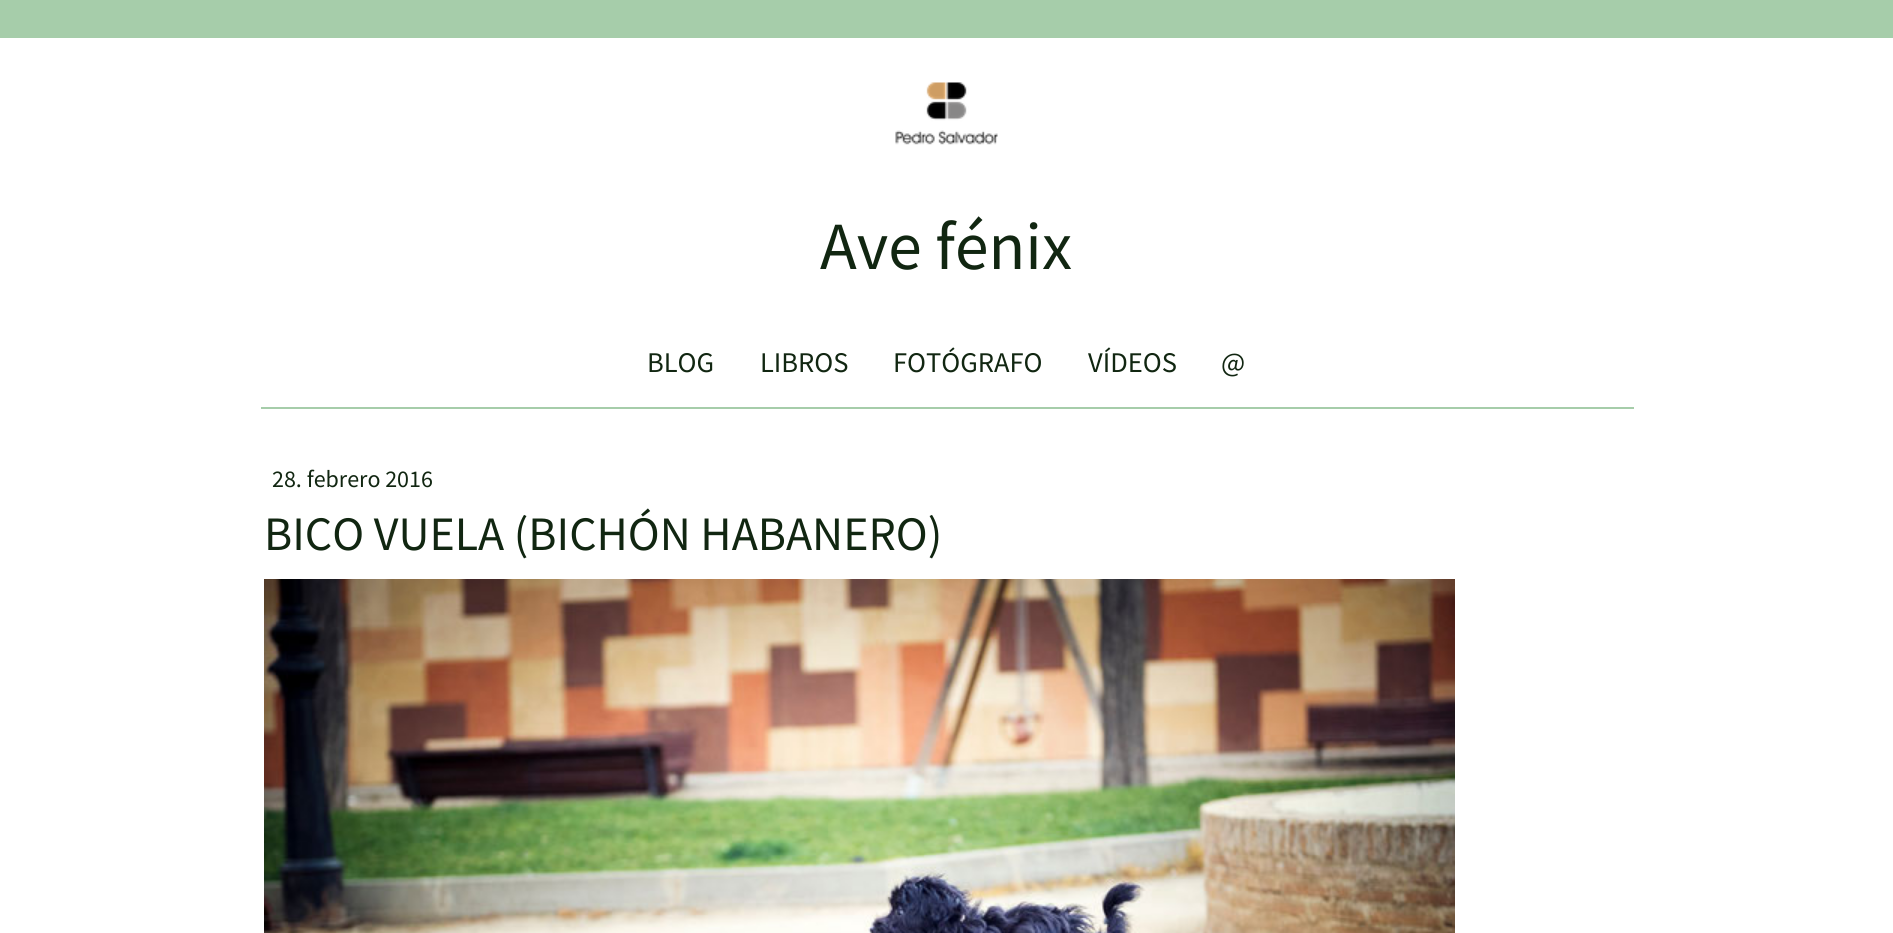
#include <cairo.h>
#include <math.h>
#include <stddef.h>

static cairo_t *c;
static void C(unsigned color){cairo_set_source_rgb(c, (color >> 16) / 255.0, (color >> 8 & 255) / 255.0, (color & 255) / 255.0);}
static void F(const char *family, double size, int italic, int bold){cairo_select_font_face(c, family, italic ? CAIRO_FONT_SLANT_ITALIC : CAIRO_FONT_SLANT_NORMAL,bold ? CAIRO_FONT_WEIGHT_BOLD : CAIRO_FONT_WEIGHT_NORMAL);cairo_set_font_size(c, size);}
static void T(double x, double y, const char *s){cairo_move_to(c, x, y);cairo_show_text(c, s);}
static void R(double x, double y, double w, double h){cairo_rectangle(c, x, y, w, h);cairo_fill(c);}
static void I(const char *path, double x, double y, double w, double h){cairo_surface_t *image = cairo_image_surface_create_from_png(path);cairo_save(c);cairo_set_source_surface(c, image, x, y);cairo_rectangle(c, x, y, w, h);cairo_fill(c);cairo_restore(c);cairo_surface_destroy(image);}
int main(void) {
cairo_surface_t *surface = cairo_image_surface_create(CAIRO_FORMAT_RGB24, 1893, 933);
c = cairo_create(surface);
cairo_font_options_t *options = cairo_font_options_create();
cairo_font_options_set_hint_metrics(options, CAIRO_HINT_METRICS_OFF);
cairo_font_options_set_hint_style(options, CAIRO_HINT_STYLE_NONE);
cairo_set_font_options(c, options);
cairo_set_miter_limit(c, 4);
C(0xffffff);
cairo_paint(c);
C(0xa6cdaa);
R(0,0,1893,38);
I("1.png",895,82,103,63);
F("Source Sans Pro",67.5,0,0);
C(0x112611);
T(820,269,"Ave fénix");
C(0xa6cdaa);
R(261,407,1373,2);
F("Source Sans Pro",28.5,0,0);
C(0x112611);
T(647,372,"BLOG");
T(760,372,"LIBROS");
T(893,372,"FOTÓGRAFO");
T(1088,372,"VÍDEOS");
T(1221,372,"@");
F("Source Sans Pro",24,0,0);
T(272,487,"28. febrero 2016");
F("Source Sans Pro",48,0,0);
T(264,550,"BICO VUELA (BICHÓN HABANERO)");
I("2.png",264,579,1191,354);
cairo_surface_write_to_png(surface, "o.png");
cairo_font_options_destroy(options);
cairo_destroy(c);
cairo_surface_destroy(surface);
return 0;
}
